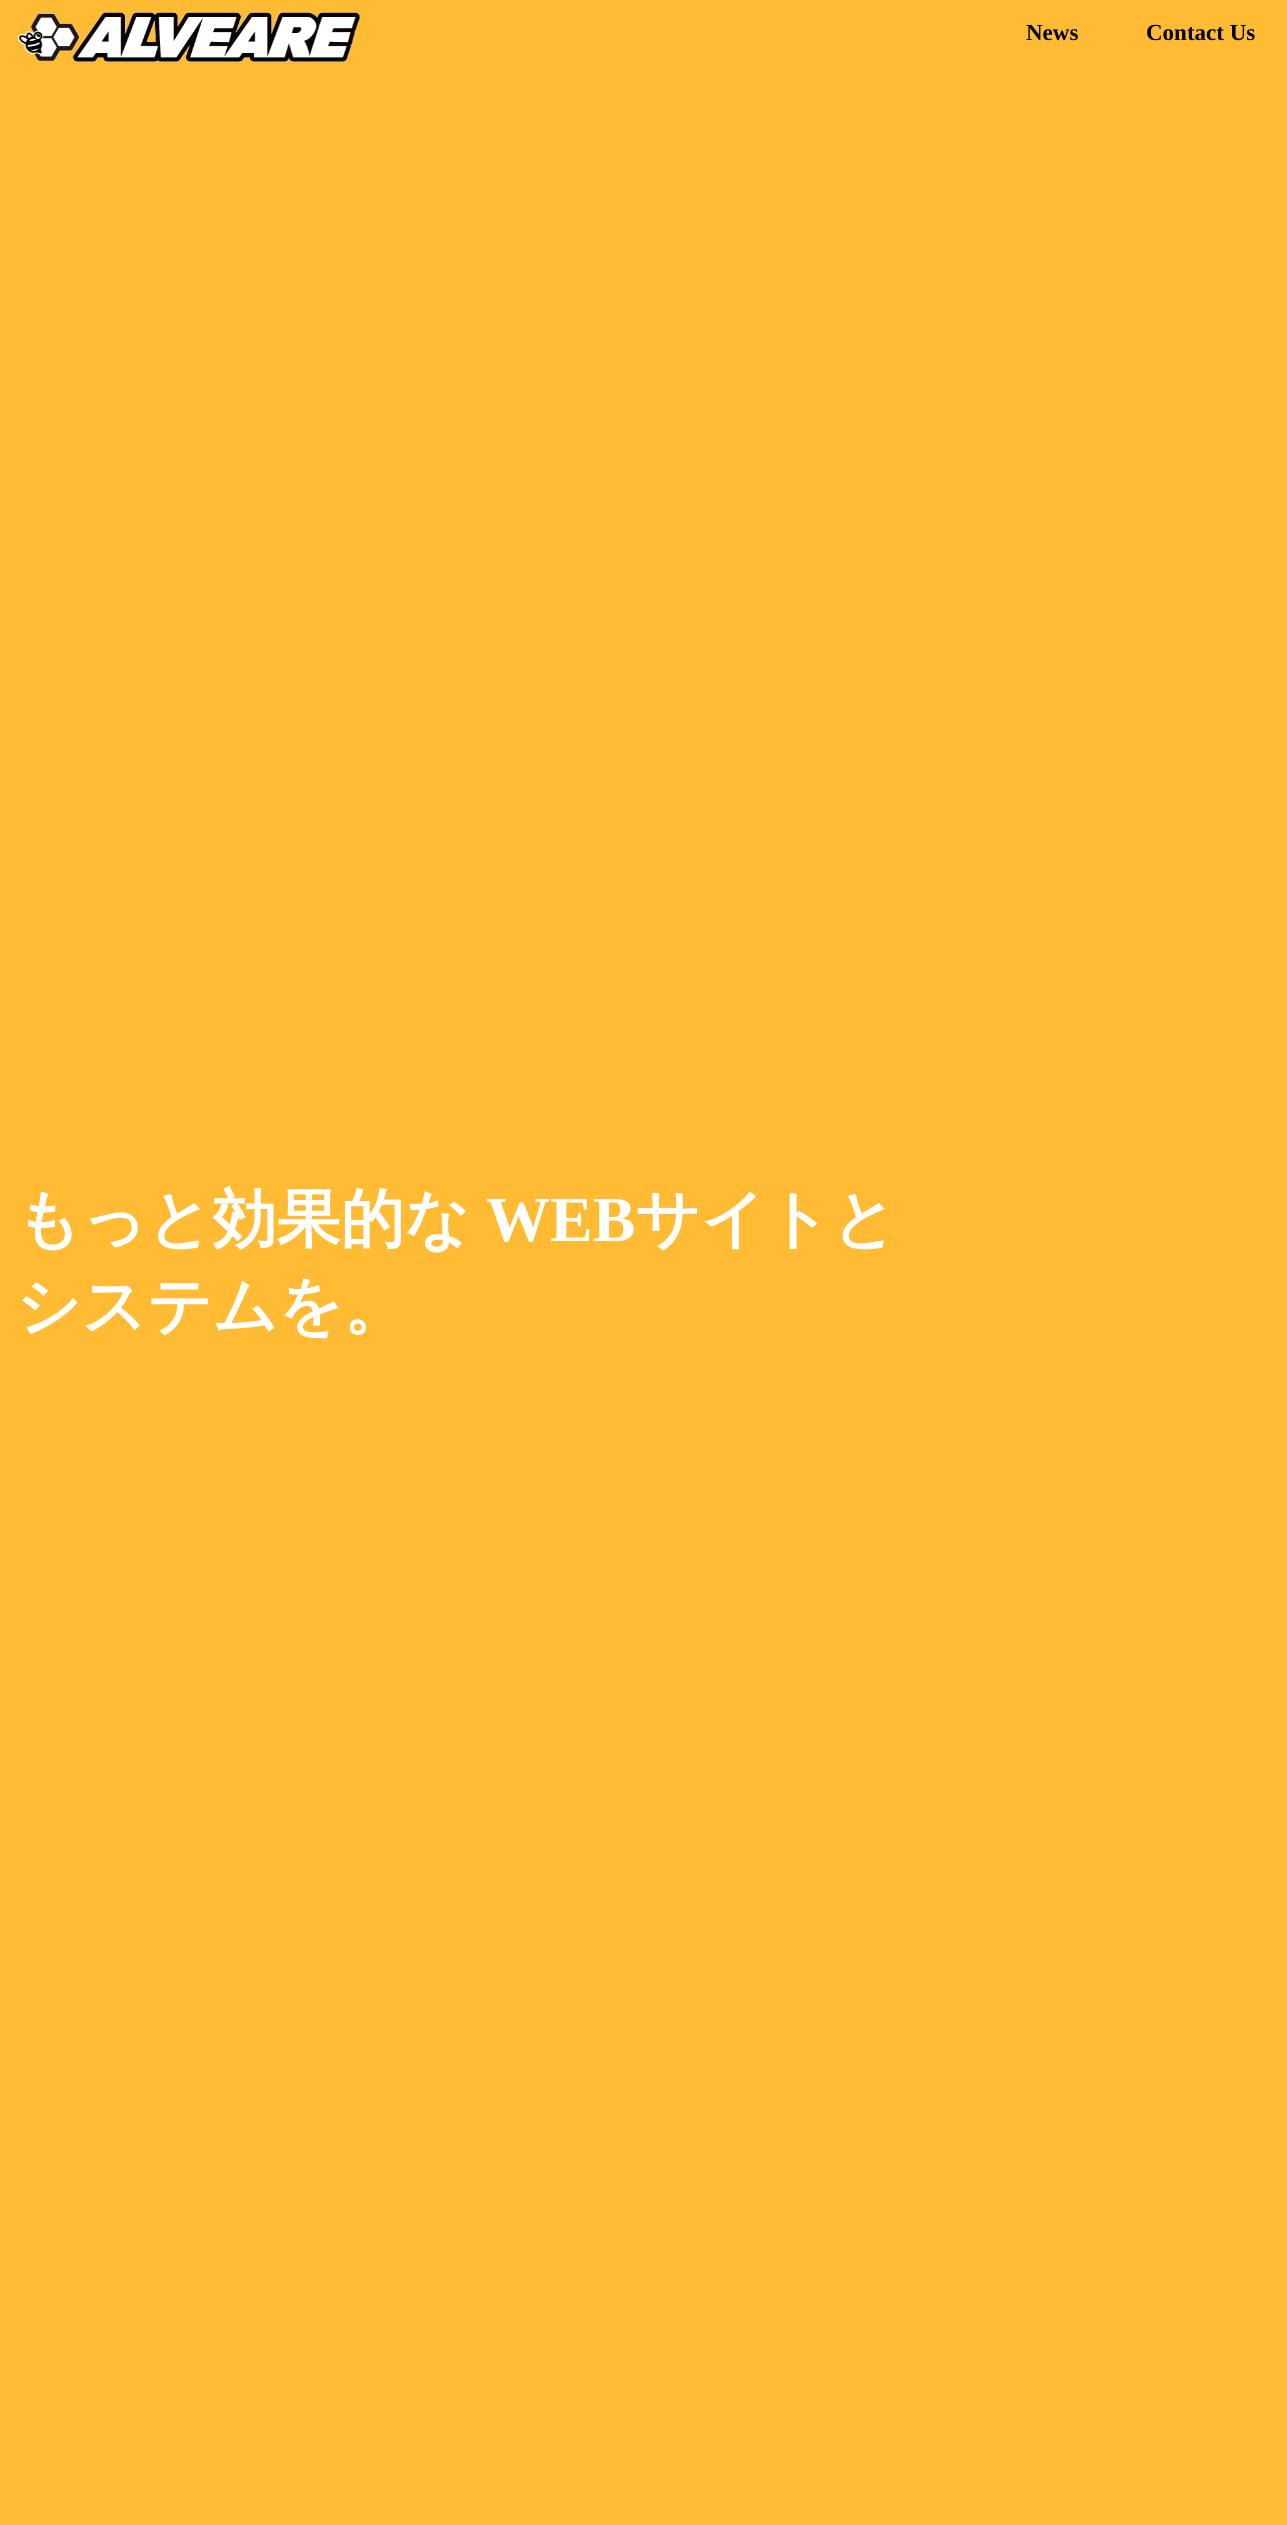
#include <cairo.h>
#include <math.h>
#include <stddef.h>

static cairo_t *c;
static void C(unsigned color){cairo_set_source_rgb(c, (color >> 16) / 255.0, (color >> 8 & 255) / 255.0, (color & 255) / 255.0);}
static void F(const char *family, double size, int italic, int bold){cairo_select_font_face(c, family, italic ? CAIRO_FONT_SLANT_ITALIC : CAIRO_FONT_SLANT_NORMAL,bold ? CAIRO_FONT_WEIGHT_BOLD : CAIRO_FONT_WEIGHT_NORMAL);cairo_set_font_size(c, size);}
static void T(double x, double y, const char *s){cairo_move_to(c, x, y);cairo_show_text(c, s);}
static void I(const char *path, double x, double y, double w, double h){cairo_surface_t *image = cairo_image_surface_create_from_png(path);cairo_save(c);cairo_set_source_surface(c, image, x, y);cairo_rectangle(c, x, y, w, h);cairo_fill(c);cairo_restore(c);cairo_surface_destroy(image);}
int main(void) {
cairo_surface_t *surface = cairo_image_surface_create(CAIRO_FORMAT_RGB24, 1287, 2525);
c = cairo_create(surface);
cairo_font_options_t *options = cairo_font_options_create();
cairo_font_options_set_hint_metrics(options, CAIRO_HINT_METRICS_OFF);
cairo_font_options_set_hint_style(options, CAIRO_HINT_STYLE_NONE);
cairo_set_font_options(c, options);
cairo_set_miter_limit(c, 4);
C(0xffbb33);
cairo_paint(c);
I("1.png",17,12,344,55);
F("Liberation Serif",23,0,1);
C(0x000000);
T(1026,40,"News");
T(1146,40,"Contact Us");
F("WenQuanYi Zen Hei",64,0,1);
C(0xffffff);
T(16,1241,"もっと効果的な");
F("Liberation Serif",64,0,1);
T(486,1241,"WEB");
F("WenQuanYi Zen Hei",64,0,1);
T(635,1241,"サイトと");
T(16,1328,"システムを。");
cairo_surface_write_to_png(surface, "o.png");
cairo_font_options_destroy(options);
cairo_destroy(c);
cairo_surface_destroy(surface);
return 0;
}
